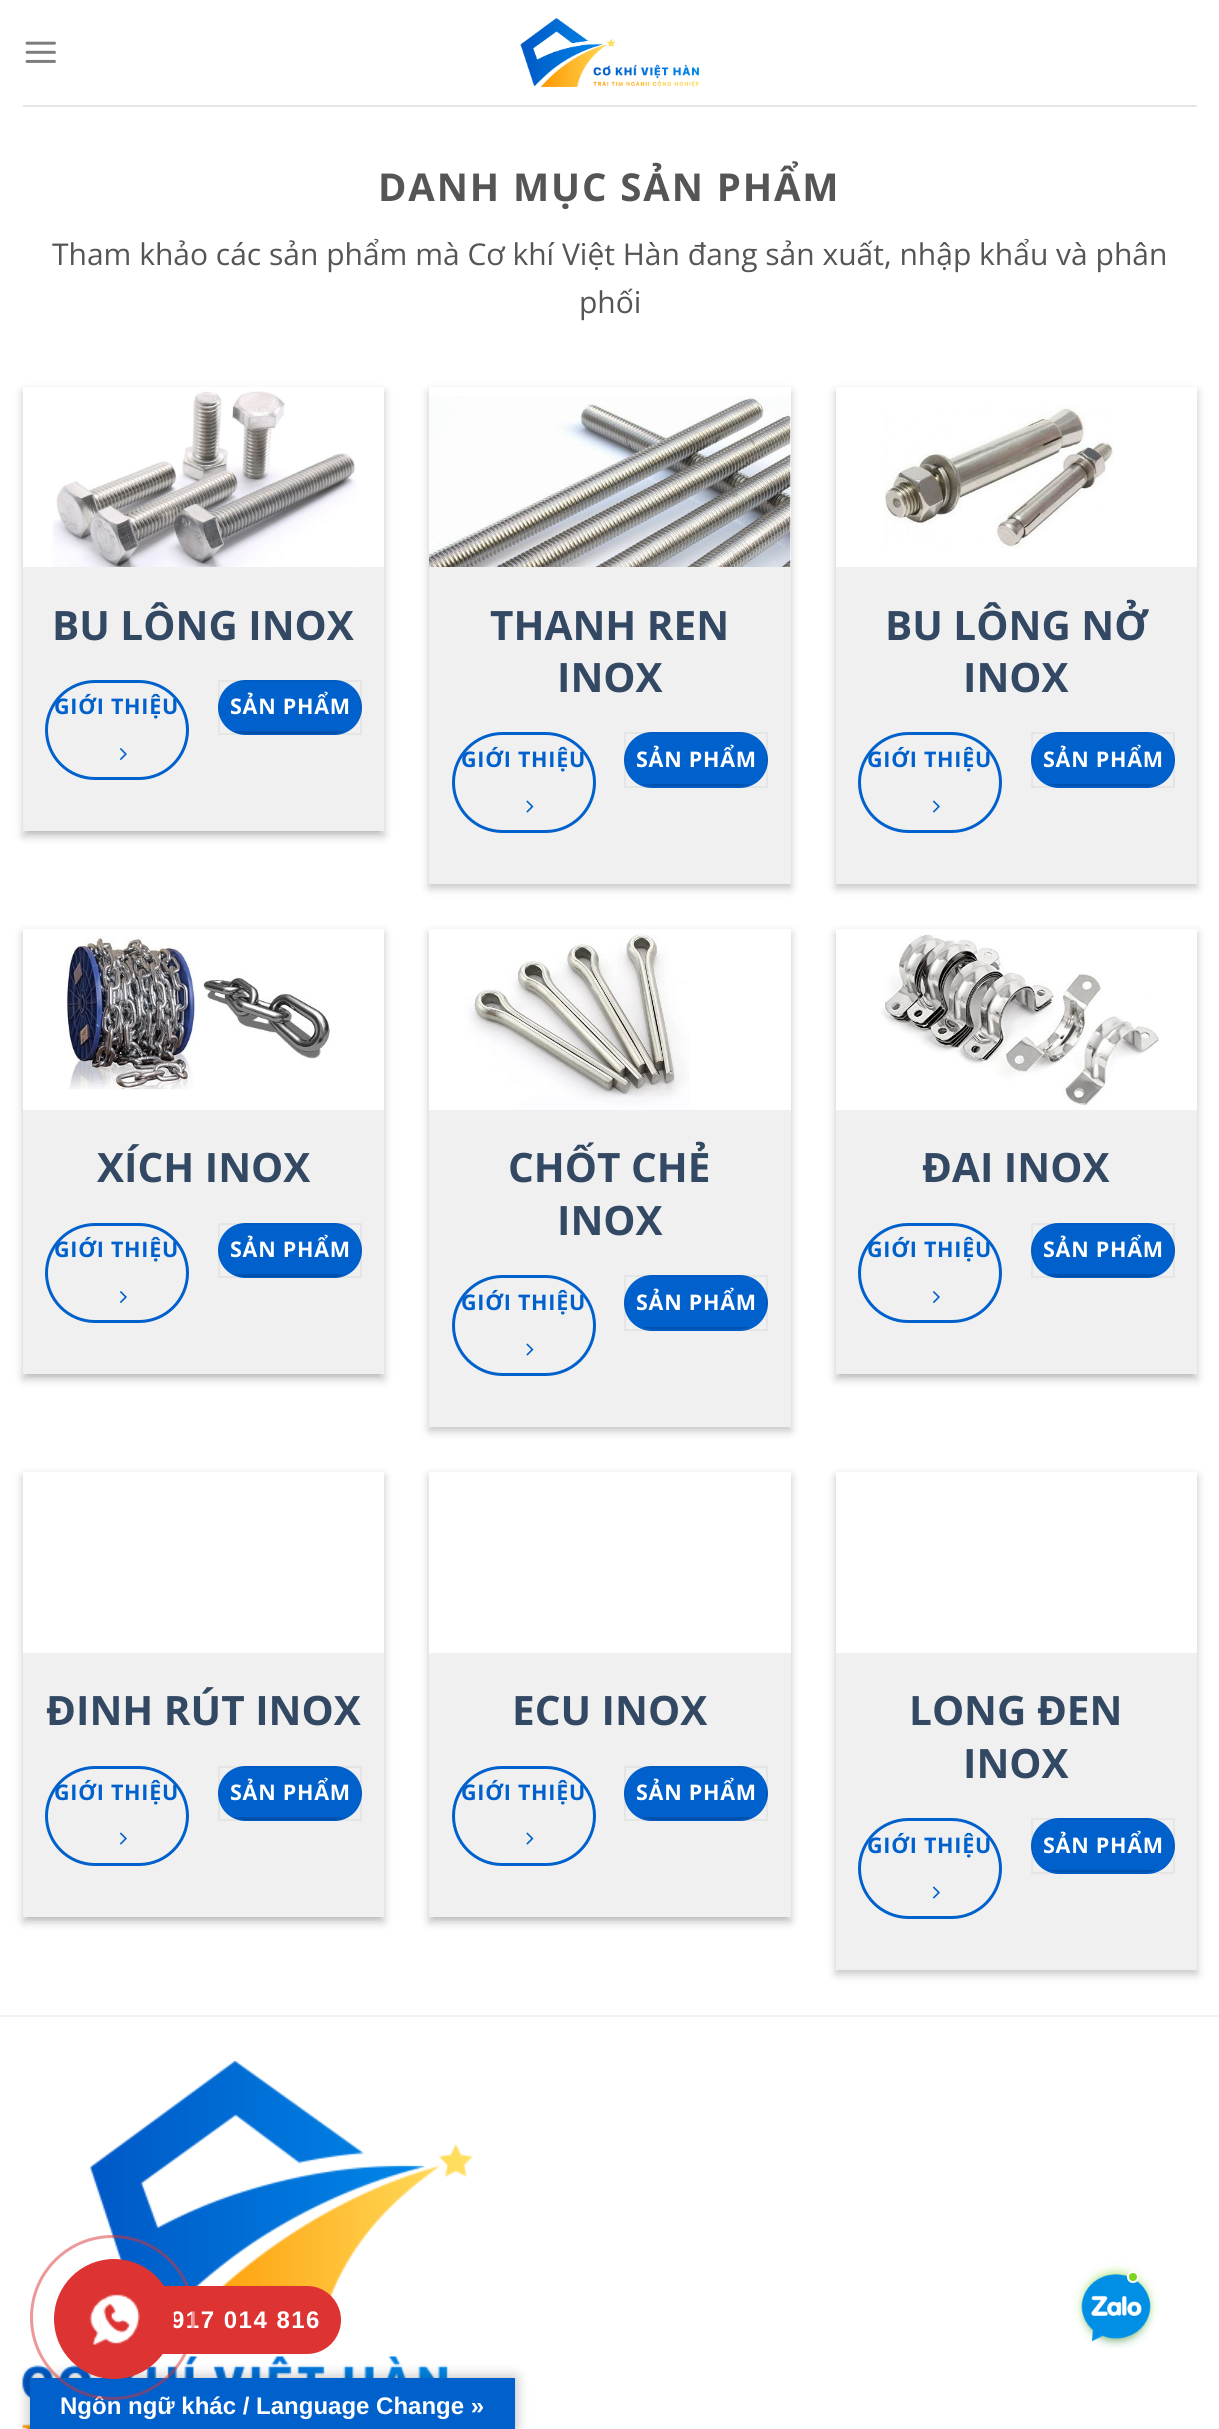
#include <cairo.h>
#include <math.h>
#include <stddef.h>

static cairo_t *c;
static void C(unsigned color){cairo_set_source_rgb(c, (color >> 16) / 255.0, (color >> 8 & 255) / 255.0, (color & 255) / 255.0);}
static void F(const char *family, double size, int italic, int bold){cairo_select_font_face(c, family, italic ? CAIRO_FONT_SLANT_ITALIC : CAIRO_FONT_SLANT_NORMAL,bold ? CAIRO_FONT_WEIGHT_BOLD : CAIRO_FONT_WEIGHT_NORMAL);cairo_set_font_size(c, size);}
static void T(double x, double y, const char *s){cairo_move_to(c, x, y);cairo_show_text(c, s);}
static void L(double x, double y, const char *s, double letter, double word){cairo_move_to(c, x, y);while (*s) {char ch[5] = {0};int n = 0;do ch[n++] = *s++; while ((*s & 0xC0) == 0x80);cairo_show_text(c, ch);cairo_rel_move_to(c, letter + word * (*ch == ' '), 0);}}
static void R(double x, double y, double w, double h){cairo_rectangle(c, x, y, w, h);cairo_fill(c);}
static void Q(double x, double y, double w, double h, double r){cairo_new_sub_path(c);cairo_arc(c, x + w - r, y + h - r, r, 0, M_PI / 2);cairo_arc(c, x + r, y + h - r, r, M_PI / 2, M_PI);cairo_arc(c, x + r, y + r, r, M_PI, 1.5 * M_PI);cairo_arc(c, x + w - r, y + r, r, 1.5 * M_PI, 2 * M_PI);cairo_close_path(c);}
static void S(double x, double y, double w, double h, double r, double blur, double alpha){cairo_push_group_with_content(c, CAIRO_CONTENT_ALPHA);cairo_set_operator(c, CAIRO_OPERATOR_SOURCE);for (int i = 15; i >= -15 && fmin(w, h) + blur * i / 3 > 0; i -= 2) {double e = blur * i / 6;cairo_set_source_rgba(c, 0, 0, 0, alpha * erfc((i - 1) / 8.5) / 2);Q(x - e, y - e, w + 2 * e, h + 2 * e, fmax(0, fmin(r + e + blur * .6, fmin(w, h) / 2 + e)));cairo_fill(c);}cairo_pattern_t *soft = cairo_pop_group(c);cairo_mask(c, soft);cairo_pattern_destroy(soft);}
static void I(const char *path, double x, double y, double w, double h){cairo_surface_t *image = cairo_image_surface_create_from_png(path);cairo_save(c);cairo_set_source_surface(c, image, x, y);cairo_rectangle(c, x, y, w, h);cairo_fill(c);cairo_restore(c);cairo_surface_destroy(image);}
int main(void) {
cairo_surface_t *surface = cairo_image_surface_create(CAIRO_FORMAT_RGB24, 1219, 2429);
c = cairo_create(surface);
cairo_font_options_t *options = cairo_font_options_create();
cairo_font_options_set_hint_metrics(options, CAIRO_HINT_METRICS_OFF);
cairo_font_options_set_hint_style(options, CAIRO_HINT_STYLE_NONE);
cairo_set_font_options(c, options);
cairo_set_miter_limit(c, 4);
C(0xffffff);
cairo_paint(c);
I("1.png",25,41,31,22);
I("2.png",520,18,179,69);
C(0xe6e6e6);
R(23,105,1174,2);
F("Open Sans",38.4,0,1);
C(0x555555);
L(378,201,"DANH MỤC SẢN PHẨM",1.9,0);
F("Open Sans",30,0,0);
T(52,265,"Tham khảo các sản phẩm mà Cơ khí Việt Hàn đang sản xuất, nhập khẩu và phân");
T(579,313,"phối");
cairo_save(c);
cairo_set_fill_rule(c,CAIRO_FILL_RULE_EVEN_ODD);
cairo_new_path(c);
cairo_move_to(c,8,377);
cairo_line_to(c,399,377);
cairo_line_to(c,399,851);
cairo_line_to(c,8,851);
cairo_close_path(c);
cairo_move_to(c,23,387);
cairo_line_to(c,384,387);
cairo_line_to(c,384,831);
cairo_line_to(c,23,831);
cairo_close_path(c);
cairo_clip(c);
C(0x000000);
S(23,392,361,444,0,4.5,.23);
cairo_restore(c);
cairo_save(c);
cairo_rectangle(c,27,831,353,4);
cairo_clip(c);
C(0x000000);
S(29,398,349,432,0,4.5,.16);
cairo_restore(c);
I("3.png",52,391,305,176);
C(0xf0f0f0);
R(23,567,361,264);
F("Open Sans",40.5,0,1);
C(0x334862);
T(52,640,"BU LÔNG INOX");
Q(46.5,681.5,141,97,48.5);
C(0x0060cc);
cairo_set_line_width(c,3);
cairo_stroke(c);
F("Open Sans",21.5,0,1);
L(54,714,"GIỚI THIỆU",.75,0);
I("4.png",119,748,8,12);
Q(218,680,144,55,27.5);
cairo_fill(c);
cairo_rectangle(c,219,681,142,53);
cairo_set_source_rgba(c,0,0,0,0.05);
cairo_set_line_width(c,2);
cairo_stroke(c);
C(0xffffff);
L(230,714,"SẢN PHẨM",.75,0);
cairo_set_source_rgba(c,0,0,0,0.15);
cairo_new_path(c);
cairo_move_to(c,346,731);
cairo_line_to(c,233,731);
cairo_curve_to(c,237,733,241,734,246,734);
cairo_line_to(c,334,734);
cairo_curve_to(c,338,734,342,733,346,731);
cairo_close_path(c);
cairo_fill(c);
cairo_save(c);
cairo_set_fill_rule(c,CAIRO_FILL_RULE_EVEN_ODD);
cairo_new_path(c);
cairo_move_to(c,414,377);
cairo_line_to(c,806,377);
cairo_line_to(c,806,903);
cairo_line_to(c,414,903);
cairo_close_path(c);
cairo_move_to(c,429,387);
cairo_line_to(c,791,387);
cairo_line_to(c,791,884);
cairo_line_to(c,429,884);
cairo_close_path(c);
cairo_clip(c);
C(0x000000);
S(429,392,362,496,0,4.5,.23);
cairo_restore(c);
I("5.png",429,396,362,171);
C(0xf0f0f0);
R(429,567,362,317);
F("Open Sans",40.5,0,1);
C(0x334862);
T(490,640,"THANH REN");
T(557,692,"INOX");
Q(453.5,733.5,141,98,49);
C(0x0060cc);
cairo_set_line_width(c,3);
cairo_stroke(c);
F("Open Sans",21.5,0,1);
L(461,767,"GIỚI THIỆU",.75,0);
I("6.png",526,800,8,13);
Q(624,732,144,56,28);
cairo_fill(c);
cairo_rectangle(c,625,733,142,54);
cairo_set_source_rgba(c,0,0,0,0.05);
cairo_set_line_width(c,2);
cairo_stroke(c);
C(0xffffff);
L(636,767,"SẢN PHẨM",.75,0);
cairo_set_source_rgba(c,0,0,0,0.15);
cairo_set_fill_rule(c,CAIRO_FILL_RULE_EVEN_ODD);
cairo_new_path(c);
cairo_move_to(c,642,784);
cairo_curve_to(c,645,785,648,786,652,786);
cairo_line_to(c,741,786);
cairo_curve_to(c,745,786,748,785,751,784);
cairo_close_path(c);
cairo_move_to(c,766,767);
cairo_curve_to(c,767,763,767,757,766,753);
cairo_close_path(c);
cairo_fill(c);
cairo_save(c);
cairo_new_path(c);
cairo_move_to(c,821,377);
cairo_line_to(c,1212,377);
cairo_line_to(c,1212,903);
cairo_line_to(c,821,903);
cairo_close_path(c);
cairo_move_to(c,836,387);
cairo_line_to(c,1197,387);
cairo_line_to(c,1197,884);
cairo_line_to(c,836,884);
cairo_close_path(c);
cairo_clip(c);
C(0x000000);
S(836,392,361,496,0,4.5,.23);
cairo_restore(c);
I("7.png",884,404,230,144);
C(0xf0f0f0);
R(836,567,361,317);
F("Open Sans",40.5,0,1);
C(0x334862);
T(885,640,"BU LÔNG NỞ");
T(963,692,"INOX");
Q(859.5,733.5,141,98,49);
C(0x0060cc);
cairo_set_line_width(c,3);
cairo_stroke(c);
F("Open Sans",21.5,0,1);
L(867,767,"GIỚI THIỆU",.75,0);
I("8.png",932,800,8,13);
Q(1031,732,144,56,28);
cairo_fill(c);
cairo_rectangle(c,1032,733,142,54);
cairo_set_source_rgba(c,0,0,0,0.05);
cairo_set_line_width(c,2);
cairo_stroke(c);
C(0xffffff);
L(1043,767,"SẢN PHẨM",.75,0);
cairo_set_source_rgba(c,0,0,0,0.15);
cairo_set_fill_rule(c,CAIRO_FILL_RULE_WINDING);
cairo_new_path(c);
cairo_move_to(c,1157,784);
cairo_line_to(c,1048,784);
cairo_curve_to(c,1051,785,1054,786,1058,786);
cairo_line_to(c,1147,786);
cairo_curve_to(c,1151,786,1154,785,1157,784);
cairo_close_path(c);
cairo_fill(c);
cairo_save(c);
cairo_set_fill_rule(c,CAIRO_FILL_RULE_EVEN_ODD);
cairo_new_path(c);
cairo_move_to(c,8,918);
cairo_line_to(c,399,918);
cairo_line_to(c,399,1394);
cairo_line_to(c,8,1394);
cairo_close_path(c);
cairo_move_to(c,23,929);
cairo_line_to(c,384,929);
cairo_line_to(c,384,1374);
cairo_line_to(c,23,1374);
cairo_close_path(c);
cairo_clip(c);
C(0x000000);
S(23,933,361,446,0,4.5,.23);
cairo_restore(c);
cairo_save(c);
cairo_rectangle(c,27,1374,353,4);
cairo_clip(c);
C(0x000000);
S(29,939,349,434,0,4.5,.16);
cairo_restore(c);
I("9.png",65,936,265,154);
C(0xf0f0f0);
R(23,1110,361,264);
F("Open Sans",40.5,0,1);
C(0x334862);
T(97,1182,"XÍCH INOX");
Q(46.5,1224.5,141,97,48.5);
C(0x0060cc);
cairo_set_line_width(c,3);
cairo_stroke(c);
F("Open Sans",21.5,0,1);
L(54,1257,"GIỚI THIỆU",.75,0);
I("4.png",119,1291,8,12);
Q(218,1223,144,55,27.5);
cairo_fill(c);
cairo_rectangle(c,219,1224,142,53);
cairo_set_source_rgba(c,0,0,0,0.05);
cairo_set_line_width(c,2);
cairo_stroke(c);
C(0xffffff);
L(230,1257,"SẢN PHẨM",.75,0);
cairo_set_source_rgba(c,0,0,0,0.15);
cairo_new_path(c);
cairo_move_to(c,346,1274);
cairo_line_to(c,233,1274);
cairo_curve_to(c,237,1276,241,1277,246,1277);
cairo_line_to(c,334,1277);
cairo_curve_to(c,338,1277,342,1276,346,1274);
cairo_close_path(c);
cairo_fill(c);
cairo_save(c);
cairo_set_fill_rule(c,CAIRO_FILL_RULE_EVEN_ODD);
cairo_new_path(c);
cairo_move_to(c,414,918);
cairo_line_to(c,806,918);
cairo_line_to(c,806,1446);
cairo_line_to(c,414,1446);
cairo_close_path(c);
cairo_move_to(c,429,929);
cairo_line_to(c,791,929);
cairo_line_to(c,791,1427);
cairo_line_to(c,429,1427);
cairo_close_path(c);
cairo_clip(c);
C(0x000000);
S(429,933,362,498,0,4.5,.23);
cairo_restore(c);
I("10.png",465,933,326,177);
C(0xf0f0f0);
R(429,1110,362,317);
F("Open Sans",40.5,0,1);
C(0x334862);
T(508,1182,"CHỐT CHẺ");
T(557,1235,"INOX");
Q(453.5,1276.5,141,98,49);
C(0x0060cc);
cairo_set_line_width(c,3);
cairo_stroke(c);
F("Open Sans",21.5,0,1);
L(461,1310,"GIỚI THIỆU",.75,0);
I("6.png",526,1343,8,13);
Q(624,1275,144,56,28);
cairo_fill(c);
cairo_rectangle(c,625,1276,142,54);
cairo_set_source_rgba(c,0,0,0,0.05);
cairo_set_line_width(c,2);
cairo_stroke(c);
C(0xffffff);
L(636,1310,"SẢN PHẨM",.75,0);
cairo_set_source_rgba(c,0,0,0,0.15);
cairo_set_fill_rule(c,CAIRO_FILL_RULE_EVEN_ODD);
cairo_new_path(c);
cairo_move_to(c,642,1327);
cairo_curve_to(c,645,1328,648,1329,652,1329);
cairo_line_to(c,741,1329);
cairo_curve_to(c,745,1329,748,1328,751,1327);
cairo_close_path(c);
cairo_move_to(c,766,1310);
cairo_curve_to(c,767,1306,767,1300,766,1296);
cairo_close_path(c);
cairo_fill(c);
cairo_save(c);
cairo_new_path(c);
cairo_move_to(c,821,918);
cairo_line_to(c,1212,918);
cairo_line_to(c,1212,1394);
cairo_line_to(c,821,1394);
cairo_close_path(c);
cairo_move_to(c,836,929);
cairo_line_to(c,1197,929);
cairo_line_to(c,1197,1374);
cairo_line_to(c,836,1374);
cairo_close_path(c);
cairo_clip(c);
C(0x000000);
S(836,933,361,446,0,4.5,.23);
cairo_restore(c);
cairo_save(c);
cairo_set_fill_rule(c,CAIRO_FILL_RULE_WINDING);
cairo_rectangle(c,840,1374,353,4);
cairo_clip(c);
C(0x000000);
S(842,939,349,434,0,4.5,.16);
cairo_restore(c);
I("11.png",880,934,279,173);
C(0xf0f0f0);
R(836,1110,361,264);
F("Open Sans",40.5,0,1);
C(0x334862);
T(922,1182,"ĐAI INOX");
Q(859.5,1224.5,141,97,48.5);
C(0x0060cc);
cairo_set_line_width(c,3);
cairo_stroke(c);
F("Open Sans",21.5,0,1);
L(867,1257,"GIỚI THIỆU",.75,0);
I("4.png",932,1291,8,12);
Q(1031,1223,144,55,27.5);
cairo_fill(c);
cairo_rectangle(c,1032,1224,142,53);
cairo_set_source_rgba(c,0,0,0,0.05);
cairo_set_line_width(c,2);
cairo_stroke(c);
C(0xffffff);
L(1043,1257,"SẢN PHẨM",.75,0);
cairo_set_source_rgba(c,0,0,0,0.15);
cairo_set_fill_rule(c,CAIRO_FILL_RULE_WINDING);
cairo_new_path(c);
cairo_move_to(c,1159,1274);
cairo_line_to(c,1046,1274);
cairo_curve_to(c,1050,1276,1054,1277,1058,1277);
cairo_line_to(c,1146,1277);
cairo_curve_to(c,1151,1277,1155,1276,1159,1274);
cairo_close_path(c);
cairo_fill(c);
cairo_save(c);
cairo_set_fill_rule(c,CAIRO_FILL_RULE_EVEN_ODD);
cairo_new_path(c);
cairo_move_to(c,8,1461);
cairo_line_to(c,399,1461);
cairo_line_to(c,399,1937);
cairo_line_to(c,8,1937);
cairo_close_path(c);
cairo_move_to(c,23,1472);
cairo_line_to(c,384,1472);
cairo_line_to(c,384,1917);
cairo_line_to(c,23,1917);
cairo_close_path(c);
cairo_clip(c);
C(0x000000);
S(23,1476,361,446,0,4.5,.23);
cairo_restore(c);
cairo_save(c);
cairo_rectangle(c,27,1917,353,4);
cairo_clip(c);
C(0x000000);
S(29,1482,349,434,0,4.5,.16);
cairo_restore(c);
C(0xf0f0f0);
R(23,1653,361,264);
F("Open Sans",40.5,0,1);
C(0x334862);
T(46,1725,"ĐINH RÚT INOX");
Q(46.5,1767.5,141,97,48.5);
C(0x0060cc);
cairo_set_line_width(c,3);
cairo_stroke(c);
F("Open Sans",21.5,0,1);
L(54,1800,"GIỚI THIỆU",.75,0);
I("8.png",119,1832,8,13);
Q(218,1766,144,55,27.5);
cairo_fill(c);
cairo_rectangle(c,219,1767,142,53);
cairo_set_source_rgba(c,0,0,0,0.05);
cairo_set_line_width(c,2);
cairo_stroke(c);
C(0xffffff);
L(230,1800,"SẢN PHẨM",.75,0);
cairo_set_source_rgba(c,0,0,0,0.15);
cairo_new_path(c);
cairo_move_to(c,346,1817);
cairo_line_to(c,233,1817);
cairo_curve_to(c,237,1819,241,1820,246,1820);
cairo_line_to(c,334,1820);
cairo_curve_to(c,338,1820,342,1819,346,1817);
cairo_close_path(c);
cairo_fill(c);
cairo_save(c);
cairo_set_fill_rule(c,CAIRO_FILL_RULE_EVEN_ODD);
cairo_new_path(c);
cairo_move_to(c,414,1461);
cairo_line_to(c,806,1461);
cairo_line_to(c,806,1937);
cairo_line_to(c,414,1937);
cairo_close_path(c);
cairo_move_to(c,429,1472);
cairo_line_to(c,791,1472);
cairo_line_to(c,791,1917);
cairo_line_to(c,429,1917);
cairo_close_path(c);
cairo_clip(c);
C(0x000000);
S(429,1476,362,446,0,4.5,.23);
cairo_restore(c);
cairo_save(c);
cairo_rectangle(c,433,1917,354,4);
cairo_clip(c);
C(0x000000);
S(435,1482,350,434,0,4.5,.16);
cairo_restore(c);
C(0xf0f0f0);
R(429,1653,362,264);
F("Open Sans",40.5,0,1);
C(0x334862);
T(512,1725,"ECU INOX");
Q(453.5,1767.5,141,97,48.5);
C(0x0060cc);
cairo_set_line_width(c,3);
cairo_stroke(c);
F("Open Sans",21.5,0,1);
L(461,1800,"GIỚI THIỆU",.75,0);
I("6.png",526,1832,8,13);
Q(624,1766,144,55,27.5);
cairo_fill(c);
cairo_rectangle(c,625,1767,142,53);
cairo_set_source_rgba(c,0,0,0,0.05);
cairo_set_line_width(c,2);
cairo_stroke(c);
C(0xffffff);
L(636,1800,"SẢN PHẨM",.75,0);
cairo_set_source_rgba(c,0,0,0,0.15);
cairo_set_fill_rule(c,CAIRO_FILL_RULE_EVEN_ODD);
cairo_new_path(c);
cairo_move_to(c,640,1817);
cairo_curve_to(c,644,1819,648,1820,652,1820);
cairo_line_to(c,740,1820);
cairo_curve_to(c,745,1820,749,1819,753,1817);
cairo_close_path(c);
cairo_move_to(c,766,1801);
cairo_curve_to(c,767,1796,767,1791,766,1786);
cairo_close_path(c);
cairo_fill(c);
cairo_save(c);
cairo_new_path(c);
cairo_move_to(c,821,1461);
cairo_line_to(c,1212,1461);
cairo_line_to(c,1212,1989);
cairo_line_to(c,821,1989);
cairo_close_path(c);
cairo_move_to(c,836,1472);
cairo_line_to(c,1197,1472);
cairo_line_to(c,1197,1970);
cairo_line_to(c,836,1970);
cairo_close_path(c);
cairo_clip(c);
C(0x000000);
S(836,1476,361,498,0,4.5,.23);
cairo_restore(c);
C(0xf0f0f0);
R(836,1653,361,317);
F("Open Sans",40.5,0,1);
C(0x334862);
T(909,1725,"LONG ĐEN");
T(963,1778,"INOX");
Q(859.5,1819.5,141,98,49);
C(0x0060cc);
cairo_set_line_width(c,3);
cairo_stroke(c);
F("Open Sans",21.5,0,1);
L(867,1853,"GIỚI THIỆU",.75,0);
I("8.png",932,1886,8,13);
Q(1031,1818,144,56,28);
cairo_fill(c);
cairo_rectangle(c,1032,1819,142,54);
cairo_set_source_rgba(c,0,0,0,0.05);
cairo_set_line_width(c,2);
cairo_stroke(c);
C(0xffffff);
L(1043,1853,"SẢN PHẨM",.75,0);
cairo_set_source_rgba(c,0,0,0,0.15);
cairo_set_fill_rule(c,CAIRO_FILL_RULE_WINDING);
cairo_new_path(c);
cairo_move_to(c,1157,1870);
cairo_line_to(c,1048,1870);
cairo_curve_to(c,1051,1871,1054,1872,1058,1872);
cairo_line_to(c,1147,1872);
cairo_curve_to(c,1151,1872,1154,1871,1157,1870);
cairo_close_path(c);
cairo_fill(c);
C(0xf2f2f2);
R(0,2015,1219,2);
I("12.png",22,2061,451,368);
C(0xdd3333);
Q(93,2286,248,68,34);
cairo_fill(c);
F("Liberation Sans",24,0,1);
C(0xffffff);
L(171,2328,"917 014 816",1.5,0);
C(0x000000);
S(30,2378,485,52,0,7,.3);
C(0x0060cc);
R(30,2378,485,51);
C(0xffffff);
T(60,2414,"Ngôn ngữ khác / Language Change »");
cairo_new_path(c);
cairo_arc(c,112.5,2317.5,81,0,2 * M_PI);
cairo_set_source_rgba(c,0.867,0.2,0.2,0.5);
cairo_set_line_width(c,3);
cairo_stroke(c);
C(0xdd3333);
cairo_arc(c,114,2319,60,0,2 * M_PI);
cairo_fill(c);
I("13.png",89,2294,51,51);
C(0x7ed321);
S(1086,2276,60,60,30,6,1);
I("14.png",1079,2274,74,74);
C(0x7ed321);
cairo_arc(c,1133,2277,5,0,2 * M_PI);
cairo_fill_preserve(c);
C(0xffffff);
cairo_set_line_width(c,2);
cairo_stroke(c);
cairo_surface_write_to_png(surface, "o.png");
cairo_font_options_destroy(options);
cairo_destroy(c);
cairo_surface_destroy(surface);
return 0;
}
